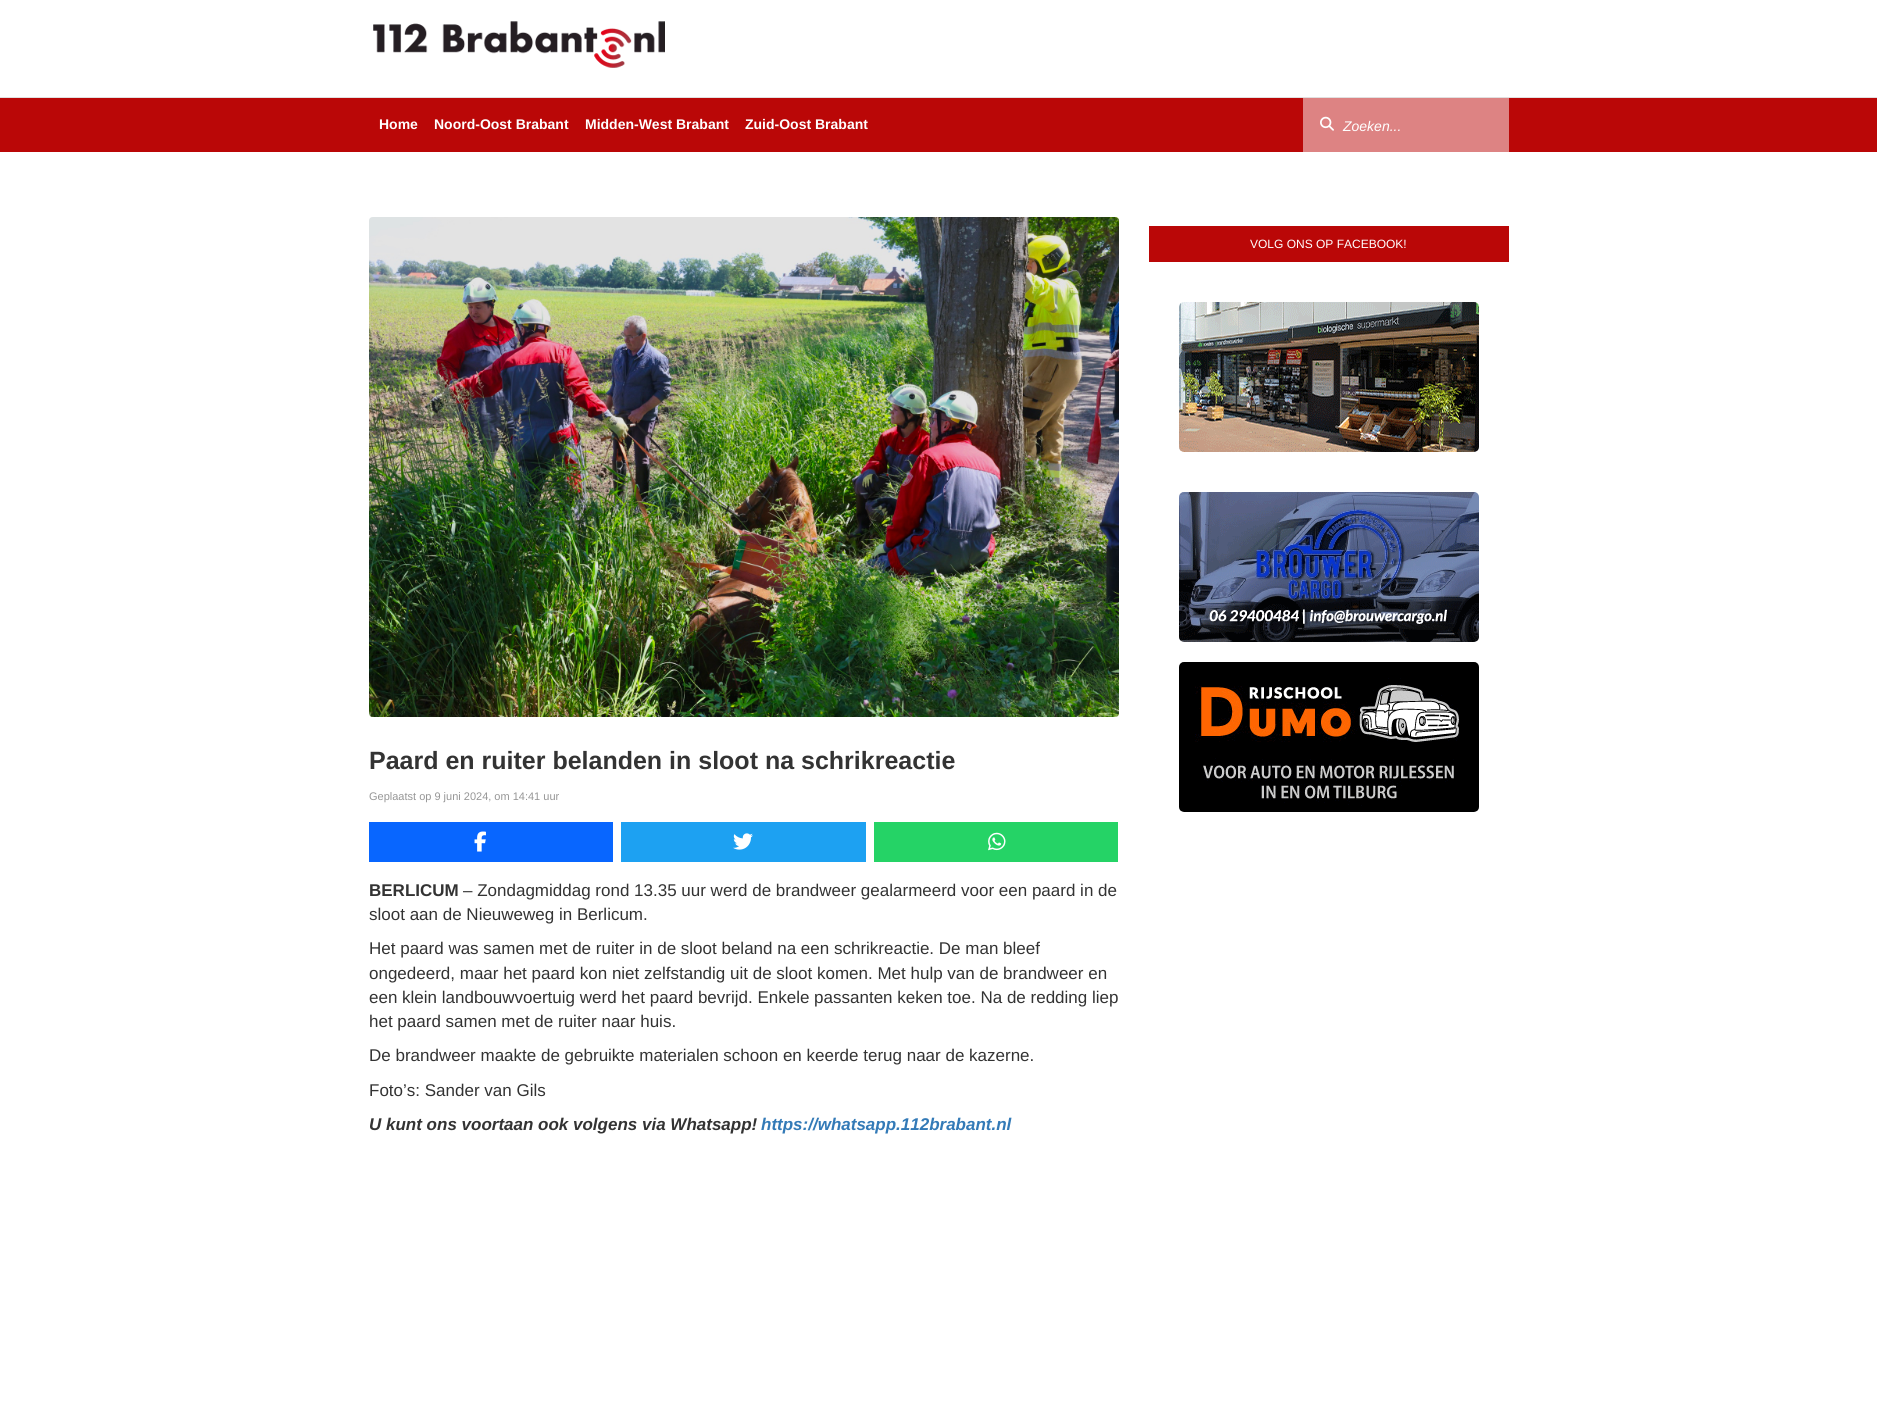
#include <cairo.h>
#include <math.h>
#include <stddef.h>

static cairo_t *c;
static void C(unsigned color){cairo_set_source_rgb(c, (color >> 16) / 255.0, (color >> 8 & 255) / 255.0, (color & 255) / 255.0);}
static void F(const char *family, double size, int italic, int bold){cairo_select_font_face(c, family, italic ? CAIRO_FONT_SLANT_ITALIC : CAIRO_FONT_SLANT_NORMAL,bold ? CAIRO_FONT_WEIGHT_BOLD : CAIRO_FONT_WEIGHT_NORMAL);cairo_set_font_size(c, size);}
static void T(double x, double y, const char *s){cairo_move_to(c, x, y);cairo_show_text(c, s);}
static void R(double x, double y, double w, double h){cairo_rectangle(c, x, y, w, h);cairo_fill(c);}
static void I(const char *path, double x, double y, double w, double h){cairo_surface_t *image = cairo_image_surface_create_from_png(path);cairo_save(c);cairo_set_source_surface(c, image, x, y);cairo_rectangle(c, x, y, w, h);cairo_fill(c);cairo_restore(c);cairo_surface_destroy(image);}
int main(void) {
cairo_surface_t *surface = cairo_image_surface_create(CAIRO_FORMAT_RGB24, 1877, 1409);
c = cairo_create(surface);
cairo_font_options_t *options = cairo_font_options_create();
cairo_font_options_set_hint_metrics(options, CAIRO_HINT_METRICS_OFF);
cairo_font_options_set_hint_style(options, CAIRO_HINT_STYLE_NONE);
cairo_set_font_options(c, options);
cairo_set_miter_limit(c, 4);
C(0xffffff);
cairo_paint(c);
C(0xe1e0e0);
R(0,97,1877,1);
I("1.png",373,21,292,47);
C(0xba0707);
R(0,98,1877,54);
C(0xdd8383);
R(1303,98,206,54);
F("Liberation Sans",14,0,1);
C(0xffffff);
T(379,129,"Home");
T(434,129,"Noord-Oost Brabant");
T(585,129,"Midden-West Brabant");
T(745,129,"Zuid-Oost Brabant");
I("2.png",1320,116,14,15);
F("Liberation Sans",14,1,0);
T(1343,131,"Zoeken...");
C(0xba0707);
R(1149,226,360,36);
F("Liberation Sans",12,0,0);
C(0xffffff);
T(1250,248,"VOLG ONS OP FACEBOOK!");
I("3.png",1179,302,300,150);
I("4.png",1179,492,300,150);
I("5.png",1179,662,300,150);
I("6.png",369,217,750,500);
F("Liberation Sans",25,0,1);
C(0x333333);
T(369,769,"Paard en ruiter belanden in sloot na schrikreactie");
F("Liberation Sans",11,0,0);
C(0x969696);
T(369,800,"Geplaatst op 9 juni 2024, om 14:41 uur");
C(0x0866ff);
R(369,822,244,40);
I("7.png",474,831,12,21);
C(0x1da1f2);
R(621,822,245,40);
I("8.png",733,833,20,17);
C(0x25d366);
R(874,822,244,40);
I("9.png",988,832,18,19);
F("Liberation Sans",17,0,1);
C(0x333333);
T(369,896,"BERLICUM");
F("Liberation Sans",17,0,0);
T(463,896,"– Zondagmiddag rond 13.35 uur werd de brandweer gealarmeerd voor een paard in de");
T(369,920,"sloot aan de Nieuweweg in Berlicum.");
T(369,954,"Het paard was samen met de ruiter in de sloot beland na een schrikreactie. De man bleef");
T(369,979,"ongedeerd, maar het paard kon niet zelfstandig uit de sloot komen. Met hulp van de brandweer en");
T(369,1003,"een klein landbouwvoertuig werd het paard bevrijd. Enkele passanten keken toe. Na de redding liep");
T(369,1027,"het paard samen met de ruiter naar huis.");
T(369,1061,"De brandweer maakte de gebruikte materialen schoon en keerde terug naar de kazerne.");
T(369,1096,"Foto’s: Sander van Gils");
F("Liberation Sans",17,1,1);
T(369,1130,"U kunt ons voortaan ook volgens via Whatsapp!");
C(0x337ab7);
T(761,1130,"https://whatsapp.112brabant.nl");
cairo_surface_write_to_png(surface, "o.png");
cairo_font_options_destroy(options);
cairo_destroy(c);
cairo_surface_destroy(surface);
return 0;
}
